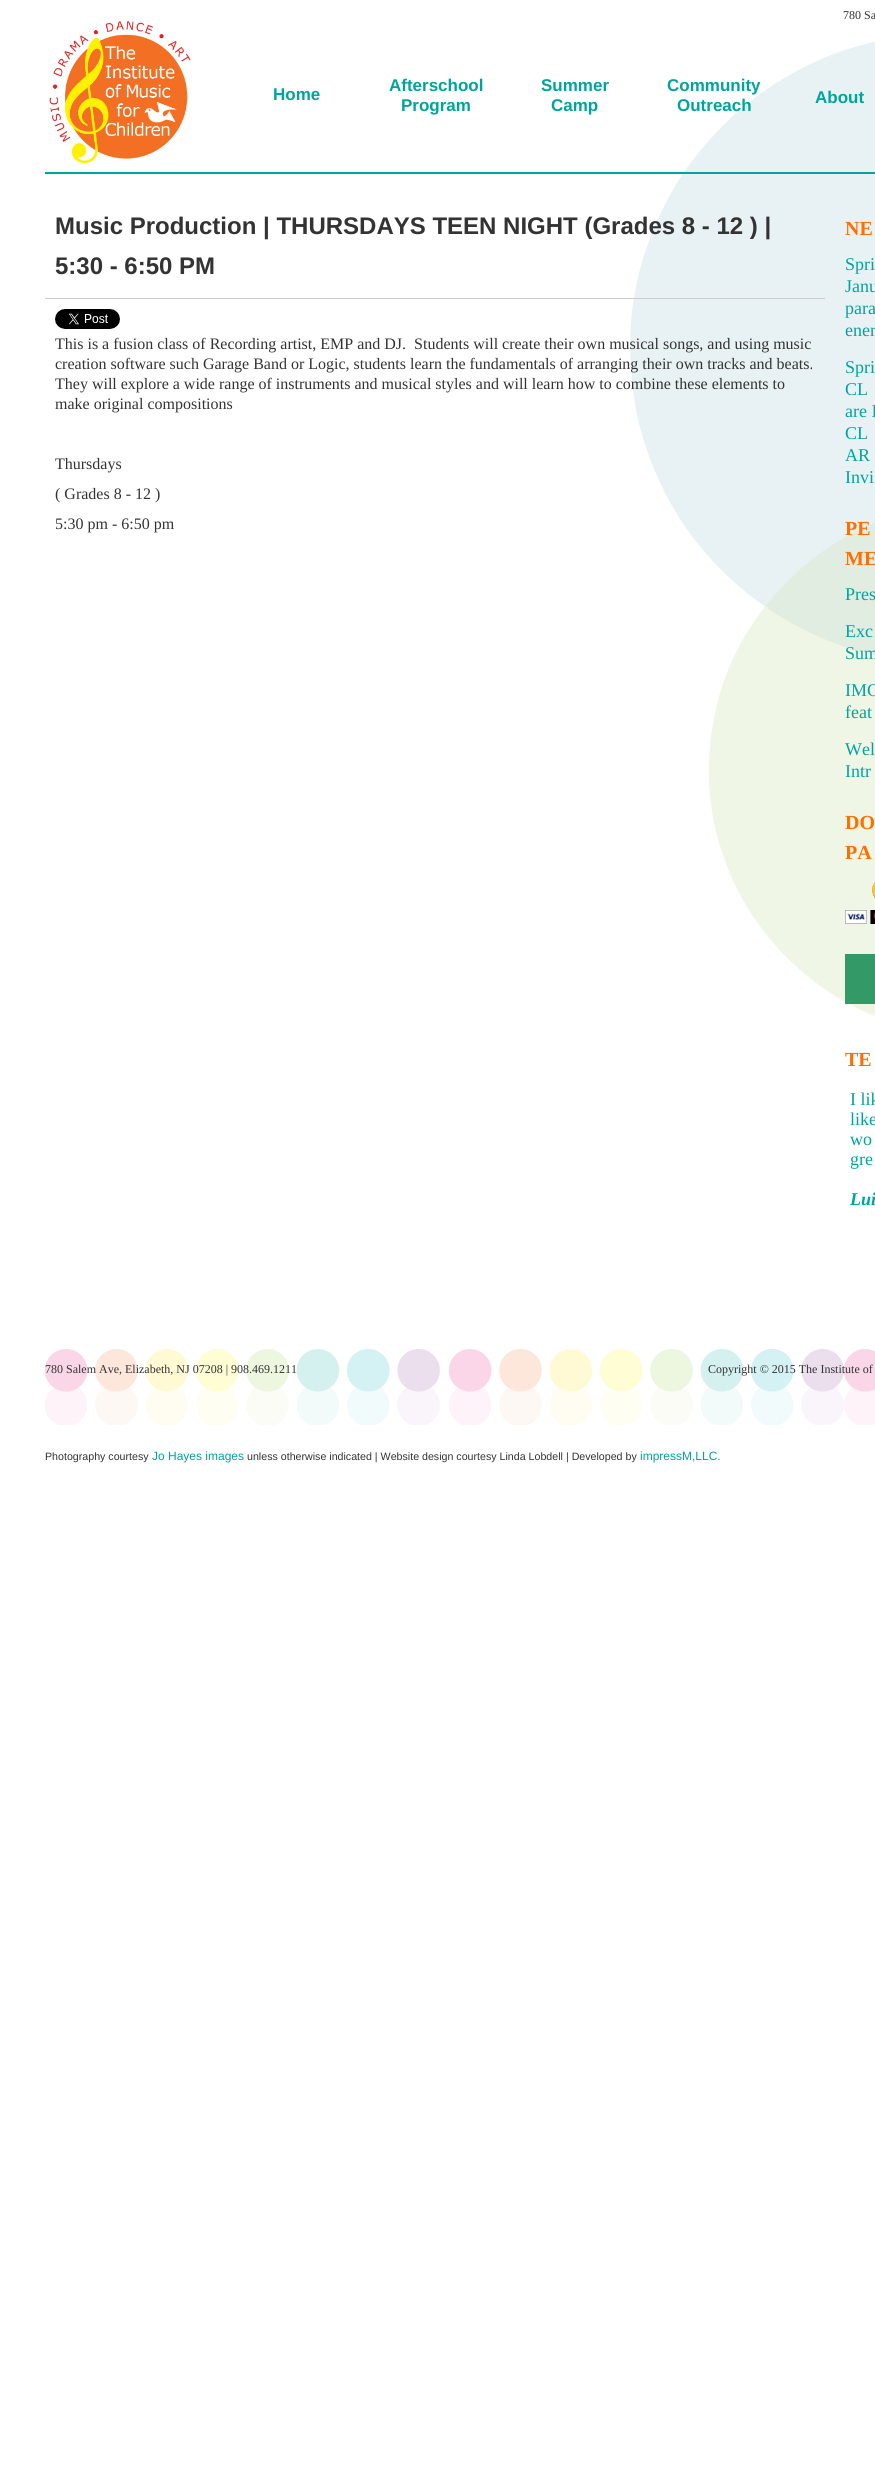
#include <cairo.h>
#include <math.h>
#include <stddef.h>

static cairo_t *c;
static void C(unsigned color){cairo_set_source_rgb(c, (color >> 16) / 255.0, (color >> 8 & 255) / 255.0, (color & 255) / 255.0);}
static void F(const char *family, double size, int italic, int bold){cairo_select_font_face(c, family, italic ? CAIRO_FONT_SLANT_ITALIC : CAIRO_FONT_SLANT_NORMAL,bold ? CAIRO_FONT_WEIGHT_BOLD : CAIRO_FONT_WEIGHT_NORMAL);cairo_set_font_size(c, size);}
static void T(double x, double y, const char *s){cairo_move_to(c, x, y);cairo_show_text(c, s);}
static void R(double x, double y, double w, double h){cairo_rectangle(c, x, y, w, h);cairo_fill(c);}
static void I(const char *path, double x, double y, double w, double h){cairo_surface_t *image = cairo_image_surface_create_from_png(path);cairo_save(c);cairo_set_source_surface(c, image, x, y);cairo_rectangle(c, x, y, w, h);cairo_fill(c);cairo_restore(c);cairo_surface_destroy(image);}
int main(void) {
cairo_surface_t *surface = cairo_image_surface_create(CAIRO_FORMAT_RGB24, 875, 2486);
c = cairo_create(surface);
cairo_font_options_t *options = cairo_font_options_create();
cairo_font_options_set_hint_metrics(options, CAIRO_HINT_METRICS_OFF);
cairo_font_options_set_hint_style(options, CAIRO_HINT_STYLE_NONE);
cairo_set_font_options(c, options);
cairo_set_miter_limit(c, 4);
C(0xffffff);
cairo_paint(c);
F("Liberation Serif",12,0,0);
C(0x333333);
T(843,19,"780 Sa");
I("1.png",49,18,143,148);
I("5.png",630,42,245,974);
C(0x00a49e);
R(45,172,830,2);
F("Liberation Sans",17,0,1);
T(273,100,"Home");
T(389,91,"Afterschool");
T(401,111,"Program");
T(541,91,"Summer");
T(551,111,"Camp");
T(667,91,"Community");
T(677,111,"Outreach");
T(815,103,"About");
C(0xcccccc);
R(45,298,780,1);
F("Liberation Sans",24,0,1);
C(0x333333);
T(55,234,"Music Production | THURSDAYS TEEN NIGHT (Grades 8 - 12 ) |");
T(55,274,"5:30 - 6:50 PM");
I("2.png",55,309,65,20);
F("Liberation Serif",16,0,0);
T(55,349,"This is a fusion class of Recording artist, EMP and DJ.  Students will create their own musical songs, and using music");
T(55,369,"creation software such Garage Band or Logic, students learn the fundamentals of arranging their own tracks and beats.");
T(55,389,"They will explore a wide range of instruments and musical styles and will learn how to combine these elements to");
T(55,409,"make original compositions");
T(55,469,"Thursdays");
T(55,499,"( Grades 8 - 12 )");
T(55,529,"5:30 pm - 6:50 pm");
F("Liberation Serif",20,0,1);
C(0xff6e00);
T(845,235,"NE");
F("Liberation Serif",18,0,0);
C(0x00a49e);
T(845,270,"Spri");
T(845,292,"Janu");
T(845,314,"para");
T(845,336,"ener");
T(845,373,"Spri");
T(845,395,"CL");
T(845,417,"are I");
T(845,439,"CL");
T(845,461,"AR");
T(845,483,"Invi");
F("Liberation Serif",20,0,1);
C(0xff6e00);
T(845,535,"PE");
T(845,565,"ME");
F("Liberation Serif",18,0,0);
C(0x00a49e);
T(845,600,"Pres");
T(845,637,"Exc");
T(845,659,"Sum");
T(845,696,"IMC");
T(845,718,"feat");
T(845,755,"Wel");
T(845,777,"Intr");
F("Liberation Serif",20,0,1);
C(0xff6e00);
T(845,829,"DO");
T(845,859,"PA");
I("3.png",845,882,30,42);
C(0x339966);
R(845,954,30,50);
C(0xff6e00);
T(845,1066,"TE");
F("Liberation Serif",18,0,0);
C(0x00a49e);
T(850,1105,"I lik");
T(850,1125,"like");
T(850,1145,"wo");
T(850,1165,"gre");
F("Liberation Serif",18,1,1);
T(850,1205,"Lui");
I("4.png",45,1349,830,76);
F("Liberation Serif",12,0,0);
C(0x333333);
T(45,1373,"780 Salem Ave, Elizabeth, NJ 07208 | 908.469.1211");
T(708,1373,"Copyright © 2015 The Institute of");
F("Liberation Sans",10.65,0,0);
T(45,1460,"Photography courtesy");
F("Liberation Sans",12,0,0);
C(0x00a49e);
T(152,1460,"Jo Hayes images");
F("Liberation Sans",10.65,0,0);
C(0x333333);
T(247,1460,"unless otherwise indicated | Website design courtesy Linda Lobdell | Developed by");
F("Liberation Sans",12,0,0);
C(0x00a49e);
T(640,1460,"impressM,LLC.");
cairo_surface_write_to_png(surface, "o.png");
cairo_font_options_destroy(options);
cairo_destroy(c);
cairo_surface_destroy(surface);
return 0;
}
